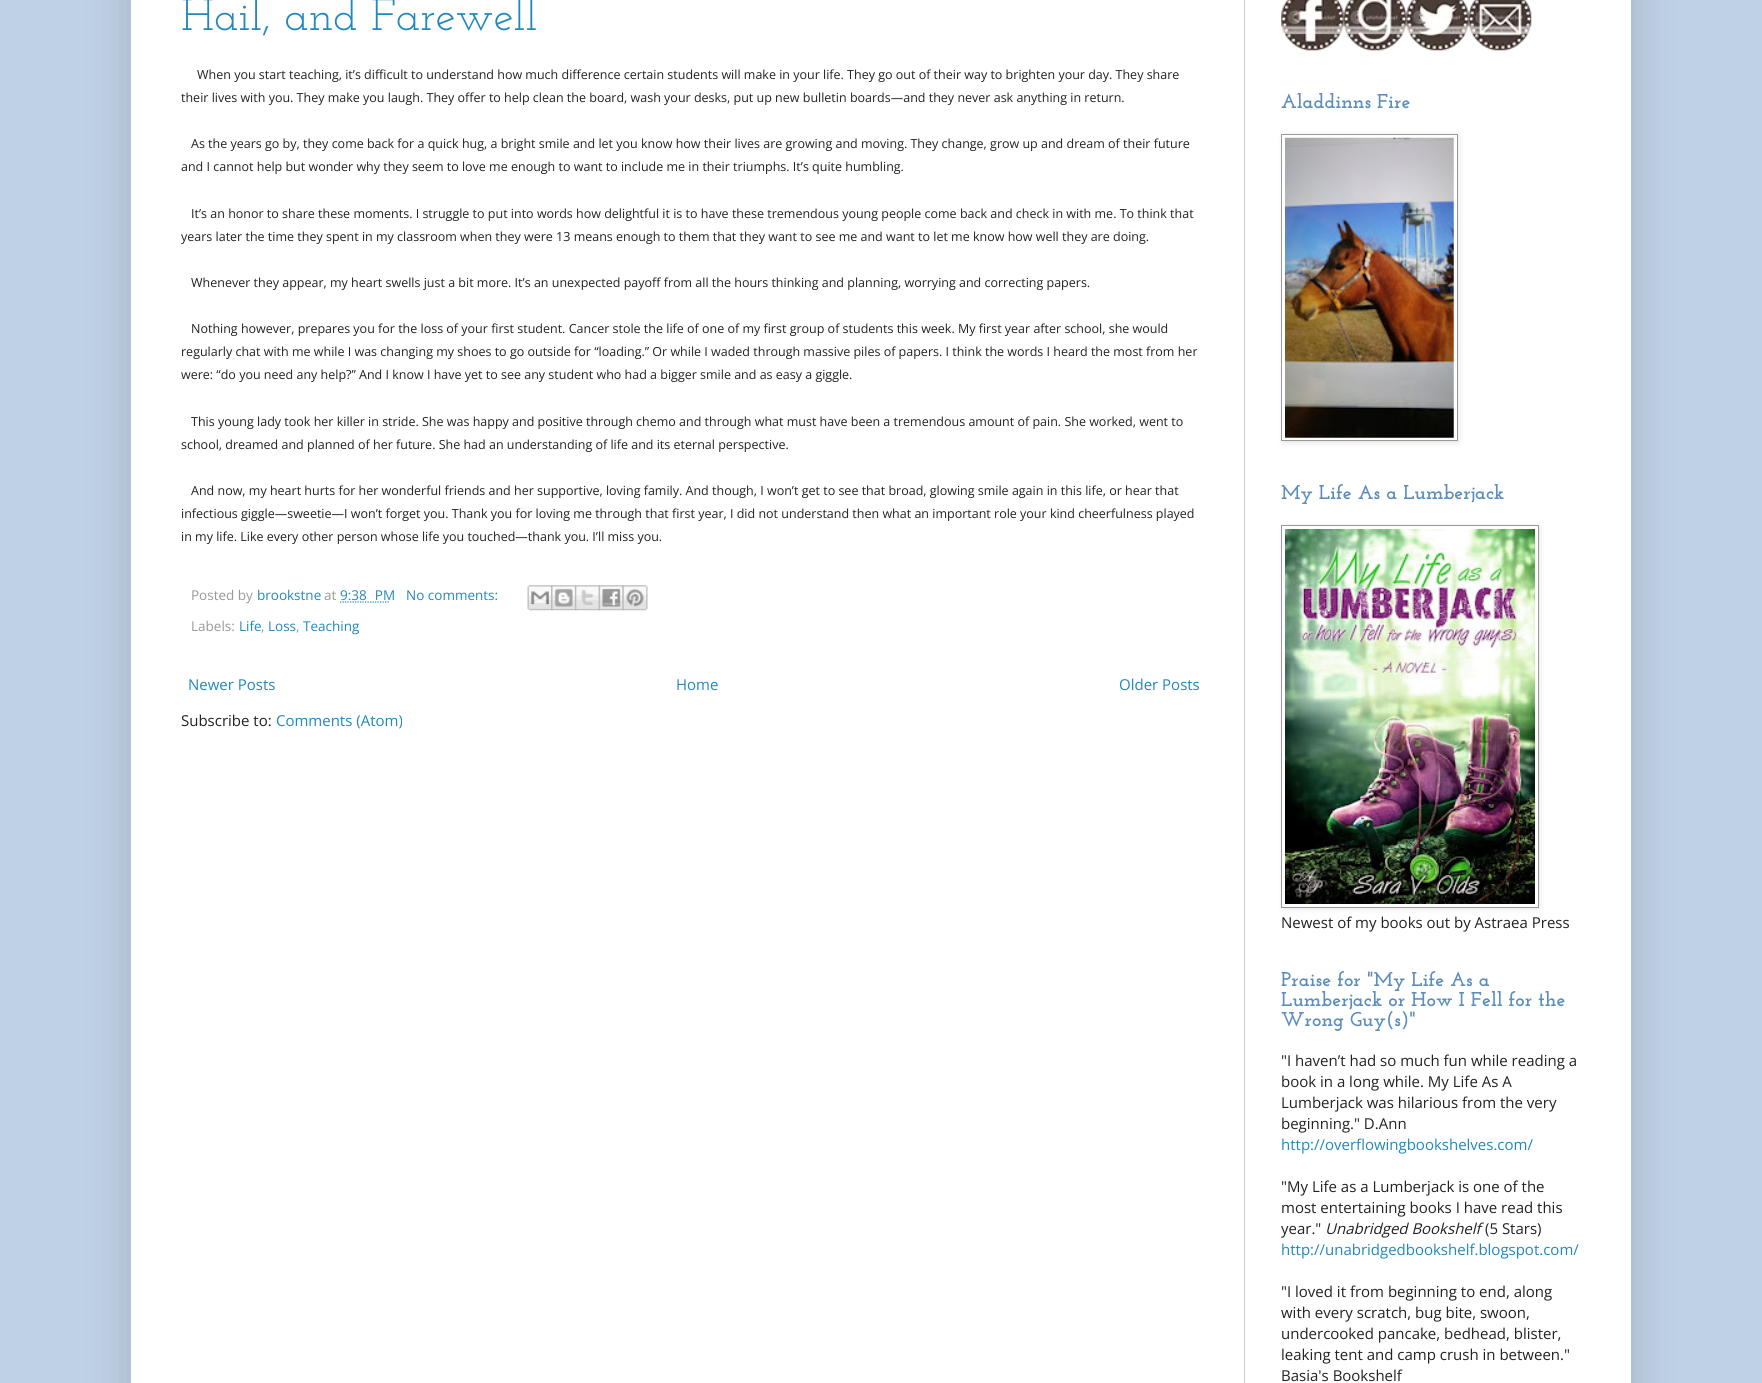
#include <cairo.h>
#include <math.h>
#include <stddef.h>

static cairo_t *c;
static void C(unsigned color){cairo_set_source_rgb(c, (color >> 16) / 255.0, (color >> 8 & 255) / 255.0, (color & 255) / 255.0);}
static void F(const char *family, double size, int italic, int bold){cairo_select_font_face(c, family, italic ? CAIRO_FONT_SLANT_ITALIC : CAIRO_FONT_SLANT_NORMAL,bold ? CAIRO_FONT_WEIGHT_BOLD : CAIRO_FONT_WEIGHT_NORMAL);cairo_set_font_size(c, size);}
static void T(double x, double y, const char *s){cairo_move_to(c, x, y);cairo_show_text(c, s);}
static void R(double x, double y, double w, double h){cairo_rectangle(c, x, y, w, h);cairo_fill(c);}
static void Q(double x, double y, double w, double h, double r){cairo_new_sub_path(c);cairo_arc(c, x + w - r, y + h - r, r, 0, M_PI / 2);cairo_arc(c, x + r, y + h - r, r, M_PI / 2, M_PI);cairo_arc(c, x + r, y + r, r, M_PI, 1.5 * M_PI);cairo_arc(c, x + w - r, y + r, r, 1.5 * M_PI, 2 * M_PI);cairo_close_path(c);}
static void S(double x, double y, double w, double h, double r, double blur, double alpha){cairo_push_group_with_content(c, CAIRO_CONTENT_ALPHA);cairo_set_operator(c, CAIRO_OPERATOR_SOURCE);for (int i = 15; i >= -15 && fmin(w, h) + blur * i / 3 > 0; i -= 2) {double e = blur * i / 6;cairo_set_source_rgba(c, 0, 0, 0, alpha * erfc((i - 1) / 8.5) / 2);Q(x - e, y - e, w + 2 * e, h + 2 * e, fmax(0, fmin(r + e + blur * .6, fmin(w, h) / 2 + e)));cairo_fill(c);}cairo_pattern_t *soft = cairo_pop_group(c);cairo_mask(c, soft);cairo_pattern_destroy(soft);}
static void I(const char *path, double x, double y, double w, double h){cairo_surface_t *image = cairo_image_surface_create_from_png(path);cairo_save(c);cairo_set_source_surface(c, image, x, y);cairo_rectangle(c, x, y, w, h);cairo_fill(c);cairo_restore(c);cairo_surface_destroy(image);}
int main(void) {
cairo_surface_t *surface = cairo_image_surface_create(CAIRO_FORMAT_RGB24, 1762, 1383);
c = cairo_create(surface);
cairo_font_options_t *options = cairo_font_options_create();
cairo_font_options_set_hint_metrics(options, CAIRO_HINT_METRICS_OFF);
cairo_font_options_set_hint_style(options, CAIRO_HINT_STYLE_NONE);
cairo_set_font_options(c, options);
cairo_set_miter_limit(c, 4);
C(0xbfd1e5);
cairo_paint(c);
C(0x000000);
S(131,-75,1500,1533,0,25,.15);
C(0xffffff);
R(131,0,1500,1383);
F("Josefin Slab",45,0,0);
C(0x2288bb);
T(181,30,"Hail, and Farewell");
F("Open Sans",12.5,0,0);
C(0x222222);
T(197,79,"When you start teaching, it’s difficult to understand how much difference certain students will make in your life. They go out of their way to brighten your day. They share");
T(181,102,"their lives with you. They make you laugh. They offer to help clean the board, wash your desks, put up new bulletin boards—and they never ask anything in return.");
T(191,148,"As the years go by, they come back for a quick hug, a bright smile and let you know how their lives are growing and moving. They change, grow up and dream of their future");
T(181,171,"and I cannot help but wonder why they seem to love me enough to want to include me in their triumphs. It’s quite humbling.");
T(191,218,"It’s an honor to share these moments. I struggle to put into words how delightful it is to have these tremendous young people come back and check in with me. To think that");
T(181,241,"years later the time they spent in my classroom when they were 13 means enough to them that they want to see me and want to let me know how well they are doing.");
T(191,287,"Whenever they appear, my heart swells just a bit more. It’s an unexpected payoff from all the hours thinking and planning, worrying and correcting papers.");
T(191,333,"Nothing however, prepares you for the loss of your first student. Cancer stole the life of one of my first group of students this week. My first year after school, she would");
T(181,356,"regularly chat with me while I was changing my shoes to go outside for “loading.” Or while I waded through massive piles of papers. I think the words I heard the most from her");
T(181,379,"were: “do you need any help?” And I know I have yet to see any student who had a bigger smile and as easy a giggle.");
T(191,426,"This young lady took her killer in stride. She was happy and positive through chemo and through what must have been a tremendous amount of pain. She worked, went to");
T(181,449,"school, dreamed and planned of her future. She had an understanding of life and its eternal perspective.");
T(191,495,"And now, my heart hurts for her wonderful friends and her supportive, loving family. And though, I won’t get to see that broad, glowing smile again in this life, or hear that");
T(181,518,"infectious giggle—sweetie—I won’t forget you. Thank you for loving me through that first year, I did not understand then what an important role your kind cheerfulness played");
T(181,541,"in my life. Like every other person whose life you touched—thank you. I’ll miss you.");
F("Open Sans",13.5,0,0);
C(0x999999);
T(191,600,"Posted by");
C(0x2288bb);
T(257,600,"brookstne");
C(0x999999);
T(324,600,"at");
C(0x2288bb);
T(340,600,"9:38 PM");
cairo_new_path(c);
cairo_move_to(c,340,602);
cairo_line_to(c,389,602);
cairo_set_line_width(c,1.2);
cairo_set_dash(c,(double[]){1.25,1.25},2,0);
cairo_stroke(c);
T(406,600,"No comments:");
I("1.png",527,585,26,26);
I("2.png",551,585,26,26);
I("3.png",575,585,25,26);
I("4.png",598,585,26,26);
I("5.png",622,585,26,26);
C(0x999999);
T(191,631,"Labels:");
C(0x2288bb);
T(239,631,"Life");
C(0x999999);
T(261,631,",");
C(0x2288bb);
T(268,631,"Loss");
C(0x999999);
T(296,631,",");
C(0x2288bb);
T(303,631,"Teaching");
F("Open Sans",15,0,0);
T(188,690,"Newer Posts");
T(676,690,"Home");
T(1119,690,"Older Posts");
C(0x222222);
T(181,726,"Subscribe to:");
C(0x2288bb);
T(276,726,"Comments (Atom)");
I("6.png",1281,0,63,51);
I("7.png",1343,0,64,51);
I("8.png",1406,0,63,51);
I("9.png",1468,0,64,51);
F("Josefin Slab",20,0,1);
C(0x5d8ebb);
T(1281,108,"Aladdinns Fire");
cairo_save(c);
cairo_set_fill_rule(c,CAIRO_FILL_RULE_EVEN_ODD);
cairo_new_path(c);
cairo_move_to(c,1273,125);
cairo_line_to(c,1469,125);
cairo_line_to(c,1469,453);
cairo_line_to(c,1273,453);
cairo_close_path(c);
cairo_move_to(c,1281,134);
cairo_line_to(c,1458,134);
cairo_line_to(c,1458,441);
cairo_line_to(c,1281,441);
cairo_close_path(c);
cairo_clip(c);
C(0x000000);
S(1283,135,176,308,0,3,.1);
cairo_restore(c);
cairo_rectangle(c,1281.5,134.5,176,306);
C(0x999999);
cairo_set_line_width(c,1);
cairo_set_dash(c,NULL,0,0);
cairo_stroke(c);
I("10.png",1285,137,169,301);
C(0x5d8ebb);
T(1281,499,"My Life As a Lumberjack");
cairo_save(c);
cairo_set_fill_rule(c,CAIRO_FILL_RULE_EVEN_ODD);
cairo_new_path(c);
cairo_move_to(c,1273,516);
cairo_line_to(c,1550,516);
cairo_line_to(c,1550,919);
cairo_line_to(c,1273,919);
cairo_close_path(c);
cairo_move_to(c,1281,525);
cairo_line_to(c,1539,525);
cairo_line_to(c,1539,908);
cairo_line_to(c,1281,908);
cairo_close_path(c);
cairo_clip(c);
C(0x000000);
S(1283,526,257,383,0,3,.1);
cairo_restore(c);
cairo_rectangle(c,1281.5,525.5,257,382);
C(0x999999);
cairo_stroke(c);
I("11.png",1285,529,250,375);
F("Open Sans",15,0,0);
C(0x222222);
T(1281,928,"Newest of my books out by Astraea Press");
F("Josefin Slab",20,0,1);
C(0x5d8ebb);
T(1281,986,"Praise for \"My Life As a");
T(1281,1006,"Lumberjack or How I Fell for the");
T(1281,1026,"Wrong Guy(s)\"");
F("Open Sans",15,0,0);
C(0x222222);
T(1281,1066,"\"I haven’t had so much fun while reading a");
T(1281,1087,"book in a long while. My Life As A");
T(1281,1108,"Lumberjack was hilarious from the very");
T(1281,1129,"beginning.\" D.Ann");
C(0x2288bb);
T(1281,1150,"http://overflowingbookshelves.com/");
C(0x222222);
T(1281,1192,"\"My Life as a Lumberjack is one of the");
T(1281,1213,"most entertaining books I have read this");
T(1281,1234,"year.\"");
F("Open Sans",15,1,0);
T(1325,1234,"Unabridged Bookshelf");
F("Open Sans",15,0,0);
T(1485,1234,"(5 Stars)");
C(0x2288bb);
T(1281,1255,"http://unabridgedbookshelf.blogspot.com/");
C(0x222222);
T(1281,1297,"\"I loved it from beginning to end, along");
T(1281,1318,"with every scratch, bug bite, swoon,");
T(1281,1339,"undercooked pancake, bedhead, blister,");
T(1281,1360,"leaking tent and camp crush in between.\"");
T(1281,1381,"Basia's Bookshelf");
C(0xcccccc);
R(1244,0,1,1383);
cairo_surface_write_to_png(surface, "o.png");
cairo_font_options_destroy(options);
cairo_destroy(c);
cairo_surface_destroy(surface);
return 0;
}
